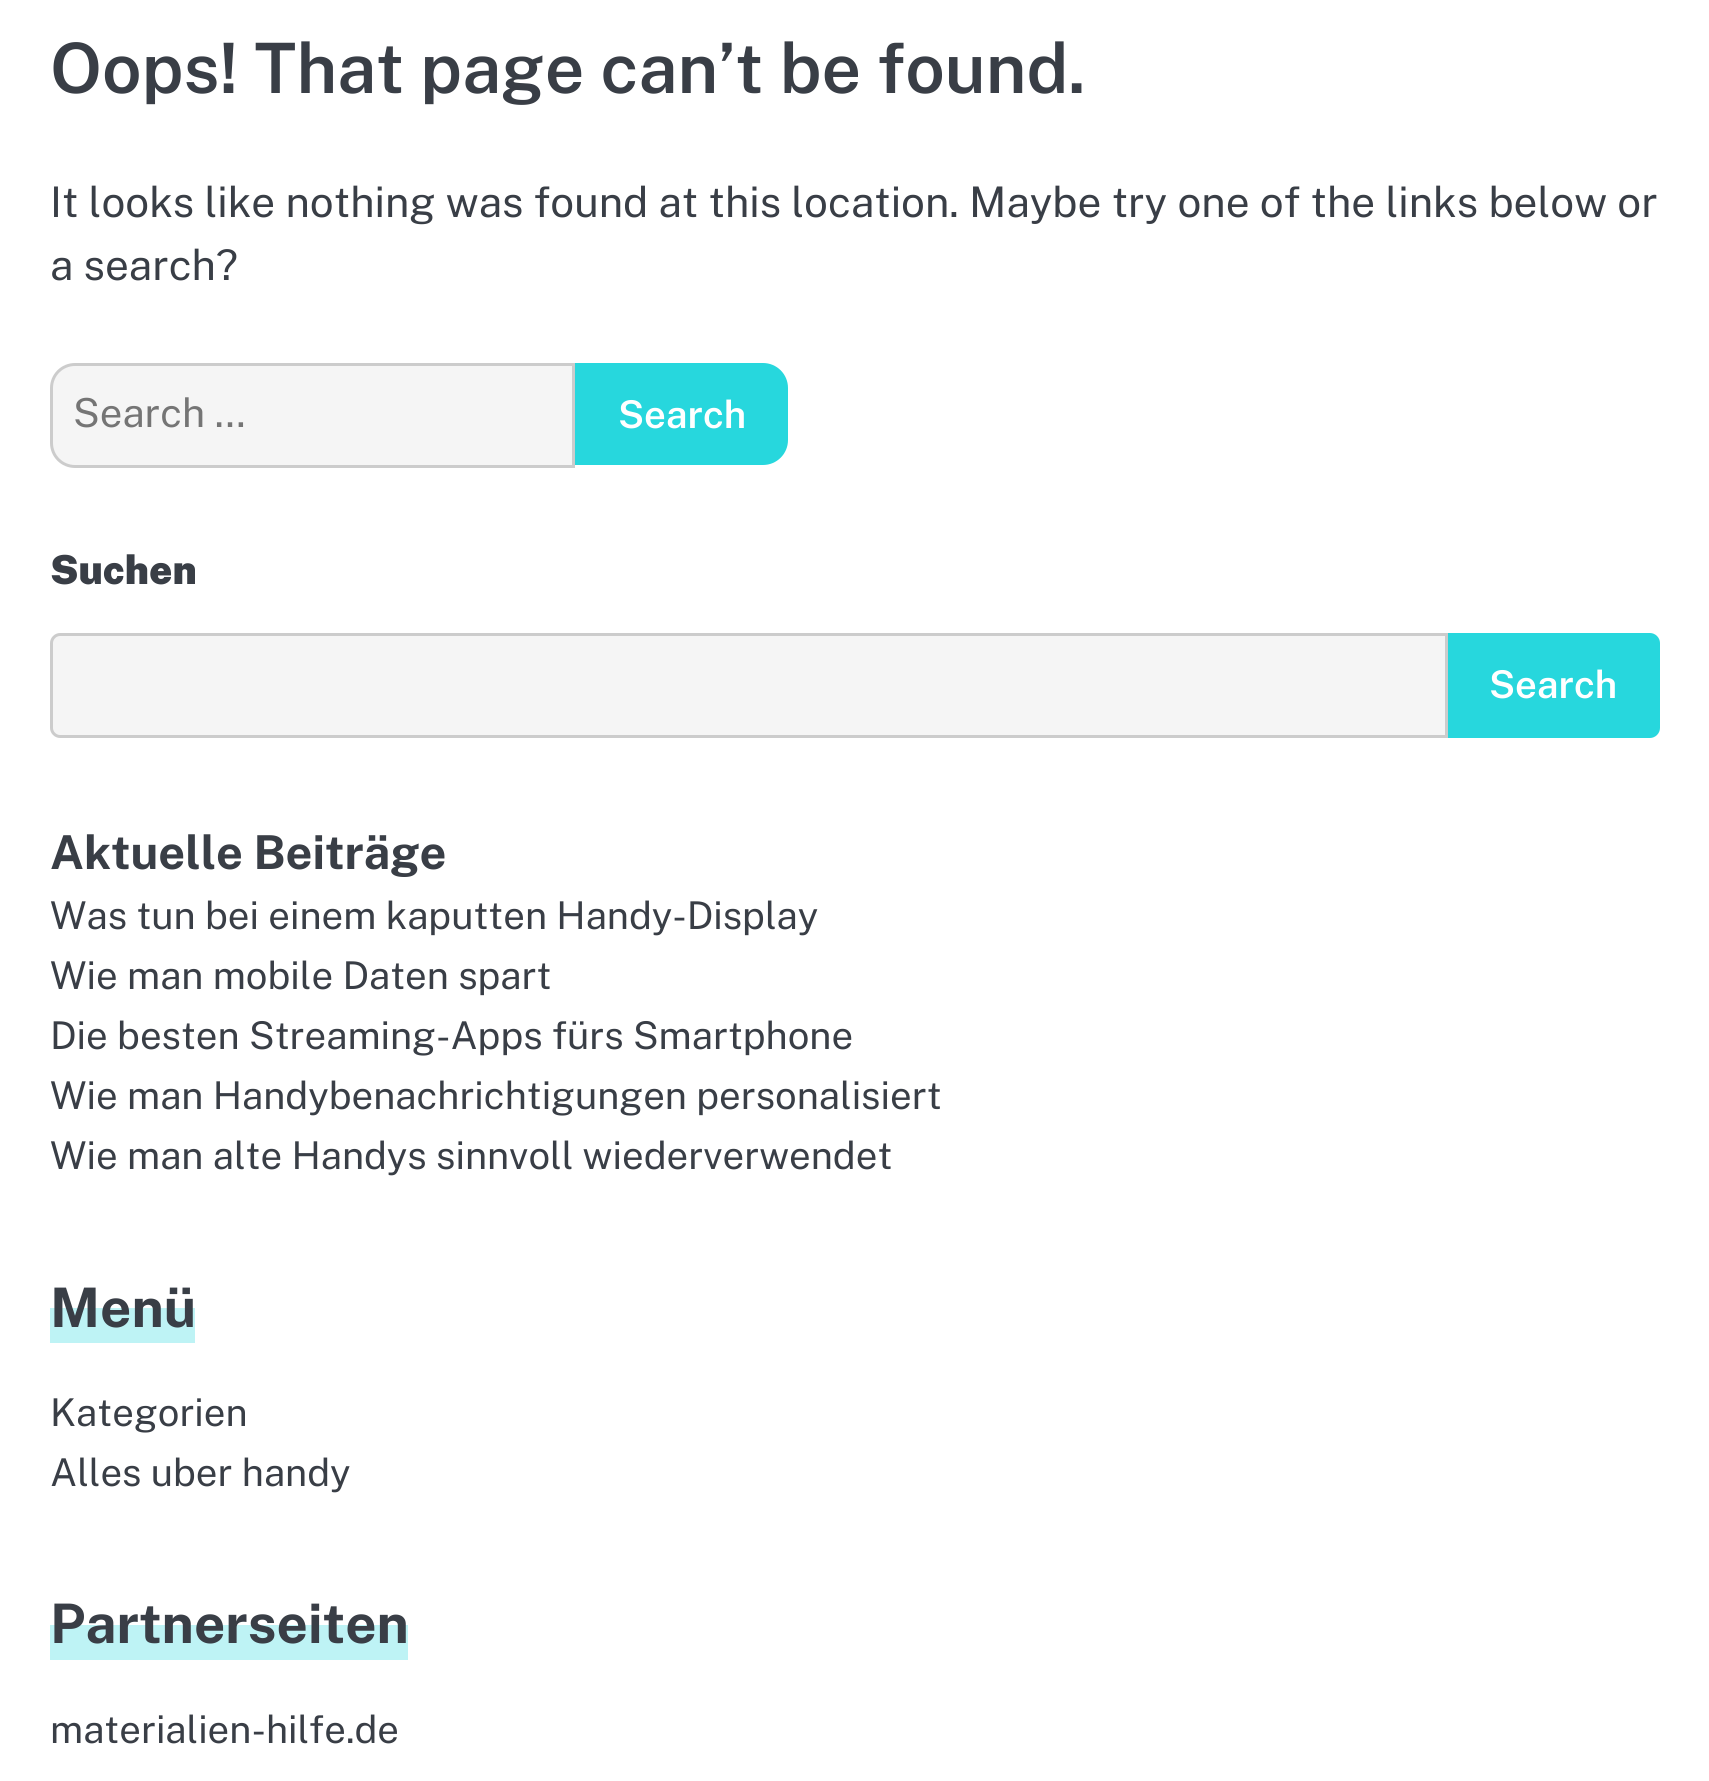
#include <cairo.h>
#include <math.h>
#include <stddef.h>

static cairo_t *c;
static void C(unsigned color){cairo_set_source_rgb(c, (color >> 16) / 255.0, (color >> 8 & 255) / 255.0, (color & 255) / 255.0);}
static void F(const char *family, double size, int italic, int bold){cairo_select_font_face(c, family, italic ? CAIRO_FONT_SLANT_ITALIC : CAIRO_FONT_SLANT_NORMAL,bold ? CAIRO_FONT_WEIGHT_BOLD : CAIRO_FONT_WEIGHT_NORMAL);cairo_set_font_size(c, size);}
static void T(double x, double y, const char *s){cairo_move_to(c, x, y);cairo_show_text(c, s);}
static void R(double x, double y, double w, double h){cairo_rectangle(c, x, y, w, h);cairo_fill(c);}
int main(void) {
cairo_surface_t *surface = cairo_image_surface_create(CAIRO_FORMAT_RGB24, 1709, 1781);
c = cairo_create(surface);
cairo_font_options_t *options = cairo_font_options_create();
cairo_font_options_set_hint_metrics(options, CAIRO_HINT_METRICS_OFF);
cairo_font_options_set_hint_style(options, CAIRO_HINT_STYLE_NONE);
cairo_set_font_options(c, options);
cairo_set_miter_limit(c, 4);
C(0xffffff);
cairo_paint(c);
F("Public Sans SemiBold",69.5,0,0);
C(0x393e46);
T(50,93,"Oops! That page can’t be found.");
F("Public Sans",42.2,0,0);
T(50,217,"It looks like nothing was found at this location. Maybe try one of the links below or");
T(50,280,"a search?");
C(0xf5f5f5);
cairo_new_path(c);
cairo_move_to(c,75,364.5);
cairo_line_to(c,573.5,364.5);
cairo_line_to(c,573.5,466.5);
cairo_line_to(c,75,466.5);
cairo_curve_to(c,62,466.5,51.5,456,51.5,443);
cairo_line_to(c,51.5,388);
cairo_curve_to(c,51.5,375,62,364.5,75,364.5);
cairo_close_path(c);
cairo_fill_preserve(c);
C(0xcccccc);
cairo_set_line_width(c,3);
cairo_stroke(c);
F("Public Sans",40,0,0);
C(0x757575);
T(73,427,"Search …");
C(0x27d7dd);
cairo_new_path(c);
cairo_move_to(c,576.5,364.5);
cairo_line_to(c,763,364.5);
cairo_curve_to(c,776,364.5,786.5,375,786.5,388);
cairo_line_to(c,786.5,440);
cairo_curve_to(c,786.5,453,776,463.5,763,463.5);
cairo_line_to(c,576.5,463.5);
cairo_close_path(c);
cairo_fill_preserve(c);
cairo_stroke(c);
F("Public Sans SemiBold",38.3,0,0);
C(0xffffff);
T(618,428,"Search");
F("Public Sans Black",40,0,0);
C(0x393e46);
T(50,584,"Suchen");
C(0xf5f5f5);
cairo_new_path(c);
cairo_move_to(c,60,634.5);
cairo_line_to(c,1446.5,634.5);
cairo_line_to(c,1446.5,736.5);
cairo_line_to(c,60,736.5);
cairo_curve_to(c,55.5,736.5,51.5,732.5,51.5,728);
cairo_line_to(c,51.5,643);
cairo_curve_to(c,51.5,638.5,55.5,634.5,60,634.5);
cairo_close_path(c);
cairo_fill_preserve(c);
C(0xcccccc);
cairo_stroke(c);
C(0x27d7dd);
cairo_new_path(c);
cairo_move_to(c,1449.5,634.5);
cairo_line_to(c,1650,634.5);
cairo_curve_to(c,1654.5,634.5,1658.5,638.5,1658.5,643);
cairo_line_to(c,1658.5,728);
cairo_curve_to(c,1658.5,732.5,1654.5,736.5,1650,736.5);
cairo_line_to(c,1449.5,736.5);
cairo_close_path(c);
cairo_fill_preserve(c);
cairo_stroke(c);
F("Public Sans SemiBold",38.3,0,0);
C(0xffffff);
T(1489,698,"Search");
F("Public Sans",46.75,0,1);
C(0x393e46);
T(50,869,"Aktuelle Beiträge");
F("Public Sans",38.3,0,0);
T(50,929,"Was tun bei einem kaputten Handy-Display");
T(50,989,"Wie man mobile Daten spart");
T(50,1049,"Die besten Streaming-Apps fürs Smartphone");
T(50,1109,"Wie man Handybenachrichtigungen personalisiert");
T(50,1169,"Wie man alte Handys sinnvoll wiederverwendet");
C(0xbef3f5);
R(50,1308,145,35);
F("Public Sans",54.5,0,1);
C(0x393e46);
T(50,1327,"Menü");
F("Public Sans",38.3,0,0);
T(50,1426,"Kategorien");
T(50,1486,"Alles uber handy");
C(0xbef3f5);
R(50,1625,358,35);
F("Public Sans",54.5,0,1);
C(0x393e46);
T(50,1643,"Partnerseiten");
F("Public Sans",38.3,0,0);
T(50,1743,"materialien-hilfe.de");
cairo_surface_write_to_png(surface, "o.png");
cairo_font_options_destroy(options);
cairo_destroy(c);
cairo_surface_destroy(surface);
return 0;
}
